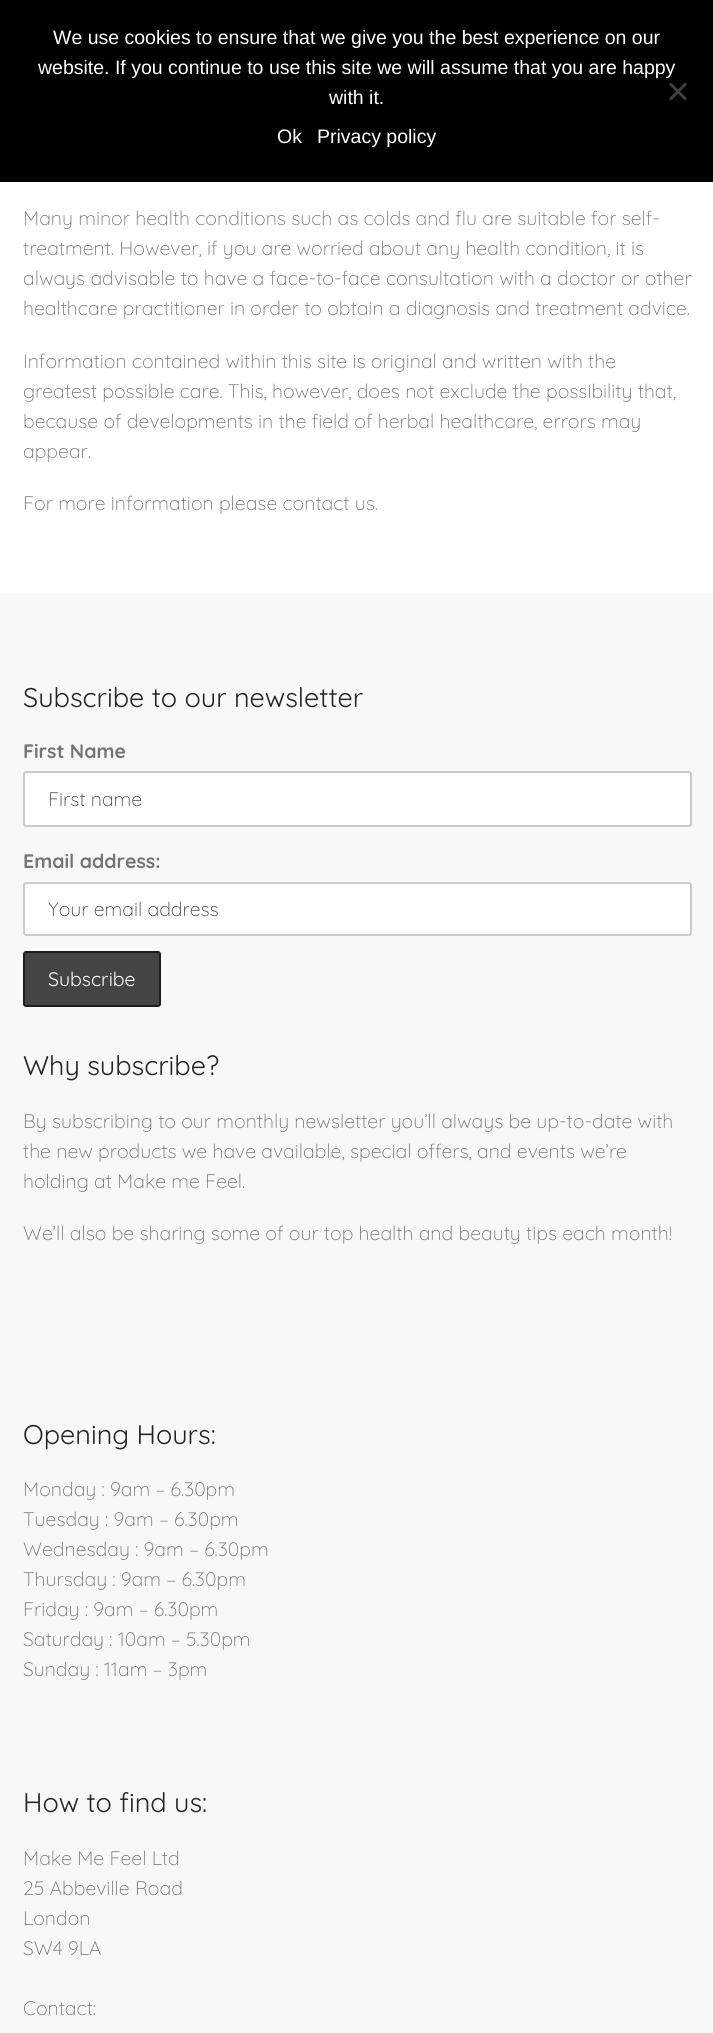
#include <cairo.h>
#include <math.h>
#include <stddef.h>

static cairo_t *c;
static void C(unsigned color){cairo_set_source_rgb(c, (color >> 16) / 255.0, (color >> 8 & 255) / 255.0, (color & 255) / 255.0);}
static void F(const char *family, double size, int italic, int bold){cairo_select_font_face(c, family, italic ? CAIRO_FONT_SLANT_ITALIC : CAIRO_FONT_SLANT_NORMAL,bold ? CAIRO_FONT_WEIGHT_BOLD : CAIRO_FONT_WEIGHT_NORMAL);cairo_set_font_size(c, size);}
static void T(double x, double y, const char *s){cairo_move_to(c, x, y);cairo_show_text(c, s);}
static void R(double x, double y, double w, double h){cairo_rectangle(c, x, y, w, h);cairo_fill(c);}
static void Q(double x, double y, double w, double h, double r){cairo_new_sub_path(c);cairo_arc(c, x + w - r, y + h - r, r, 0, M_PI / 2);cairo_arc(c, x + r, y + h - r, r, M_PI / 2, M_PI);cairo_arc(c, x + r, y + r, r, M_PI, 1.5 * M_PI);cairo_arc(c, x + w - r, y + r, r, 1.5 * M_PI, 2 * M_PI);cairo_close_path(c);}
int main(void) {
cairo_surface_t *surface = cairo_image_surface_create(CAIRO_FORMAT_RGB24, 713, 2033);
c = cairo_create(surface);
cairo_font_options_t *options = cairo_font_options_create();
cairo_font_options_set_hint_metrics(options, CAIRO_HINT_METRICS_OFF);
cairo_font_options_set_hint_style(options, CAIRO_HINT_STYLE_NONE);
cairo_set_font_options(c, options);
cairo_set_miter_limit(c, 4);
C(0xffffff);
cairo_paint(c);
C(0x000000);
R(0,0,713,182);
F("Liberation Sans",19.5,0,0);
C(0xffffff);
T(53,44,"We use cookies to ensure that we give you the best experience on our");
T(38,74,"website. If you continue to use this site we will assume that you are happy");
T(329,104,"with it.");
C(0x404040);
cairo_new_path(c);
cairo_move_to(c,685,82.5);
cairo_line_to(c,687,84.5);
cairo_line_to(c,671,100.5);
cairo_line_to(c,669,98.5);
cairo_close_path(c);
cairo_fill(c);
cairo_new_path(c);
cairo_move_to(c,669,84.5);
cairo_line_to(c,671,82.5);
cairo_line_to(c,687,98.5);
cairo_line_to(c,685,100.5);
cairo_close_path(c);
cairo_fill(c);
C(0xffffff);
T(277,143,"Ok");
T(317,143,"Privacy policy");
F("Quicksand Light",19.5,0,0);
C(0x747474);
T(23,225,"Many minor health conditions such as colds and flu are suitable for self-");
T(23,255,"treatment. However, if you are worried about any health condition, it is");
T(23,285,"always advisable to have a face-to-face consultation with a doctor or other");
T(23,315,"healthcare practitioner in order to obtain a diagnosis and treatment advice.");
T(23,368,"Information contained within this site is original and written with the");
T(23,398,"greatest possible care. This, however, does not exclude the possibility that,");
T(23,428,"because of developments in the field of herbal healthcare, errors may");
T(23,458,"appear.");
T(23,510,"For more information please contact us.");
C(0xf8f8f8);
R(0,593,713,1440);
F("Quicksand",27,0,0);
C(0x242424);
T(23,707,"Subscribe to our newsletter");
F("Quicksand",19.5,0,1);
C(0x747474);
T(23,758,"First Name");
C(0xffffff);
Q(24,772,667,54,2);
cairo_fill_preserve(c);
C(0xcccccc);
cairo_stroke(c);
F("Quicksand Light",19.5,0,0);
C(0x444444);
T(48,806,"First name");
F("Quicksand",19.5,0,1);
C(0x747474);
T(23,868,"Email address:");
C(0xffffff);
Q(24,883,667,52,2);
cairo_fill_preserve(c);
C(0xcccccc);
cairo_stroke(c);
F("Quicksand Light",19.5,0,0);
C(0x444444);
T(48,916,"Your email address");
Q(24,952,136,54,2);
cairo_fill_preserve(c);
C(0x1e1e1e);
cairo_stroke(c);
F("Quicksand",19.5,0,0);
C(0xffffff);
T(48,986,"Subscribe");
F("Quicksand",27,0,0);
C(0x242424);
T(23,1075,"Why subscribe?");
F("Quicksand Light",19.5,0,0);
C(0x747474);
T(23,1128,"By subscribing to our monthly newsletter you’ll always be up-to-date with");
T(23,1158,"the new products we have available, special offers, and events we’re");
T(23,1188,"holding at Make me Feel.");
T(23,1240,"We’ll also be sharing some of our top health and beauty tips each month!");
F("Quicksand",27,0,0);
C(0x242424);
T(23,1444,"Opening Hours:");
F("Quicksand Light",19.5,0,0);
C(0x747474);
T(23,1496,"Monday : 9am – 6.30pm");
T(23,1526,"Tuesday : 9am – 6.30pm");
T(23,1556,"Wednesday : 9am – 6.30pm");
T(23,1586,"Thursday : 9am – 6.30pm");
T(23,1616,"Friday : 9am – 6.30pm");
T(23,1646,"Saturday : 10am – 5.30pm");
T(23,1676,"Sunday : 11am – 3pm");
F("Quicksand",27,0,0);
C(0x242424);
T(23,1812,"How to find us:");
F("Quicksand Light",19.5,0,0);
C(0x747474);
T(23,1865,"Make Me Feel Ltd");
T(23,1895,"25 Abbeville Road");
T(23,1925,"London");
T(23,1955,"SW4 9LA");
T(23,2015,"Contact:");
cairo_surface_write_to_png(surface, "o.png");
cairo_font_options_destroy(options);
cairo_destroy(c);
cairo_surface_destroy(surface);
return 0;
}
